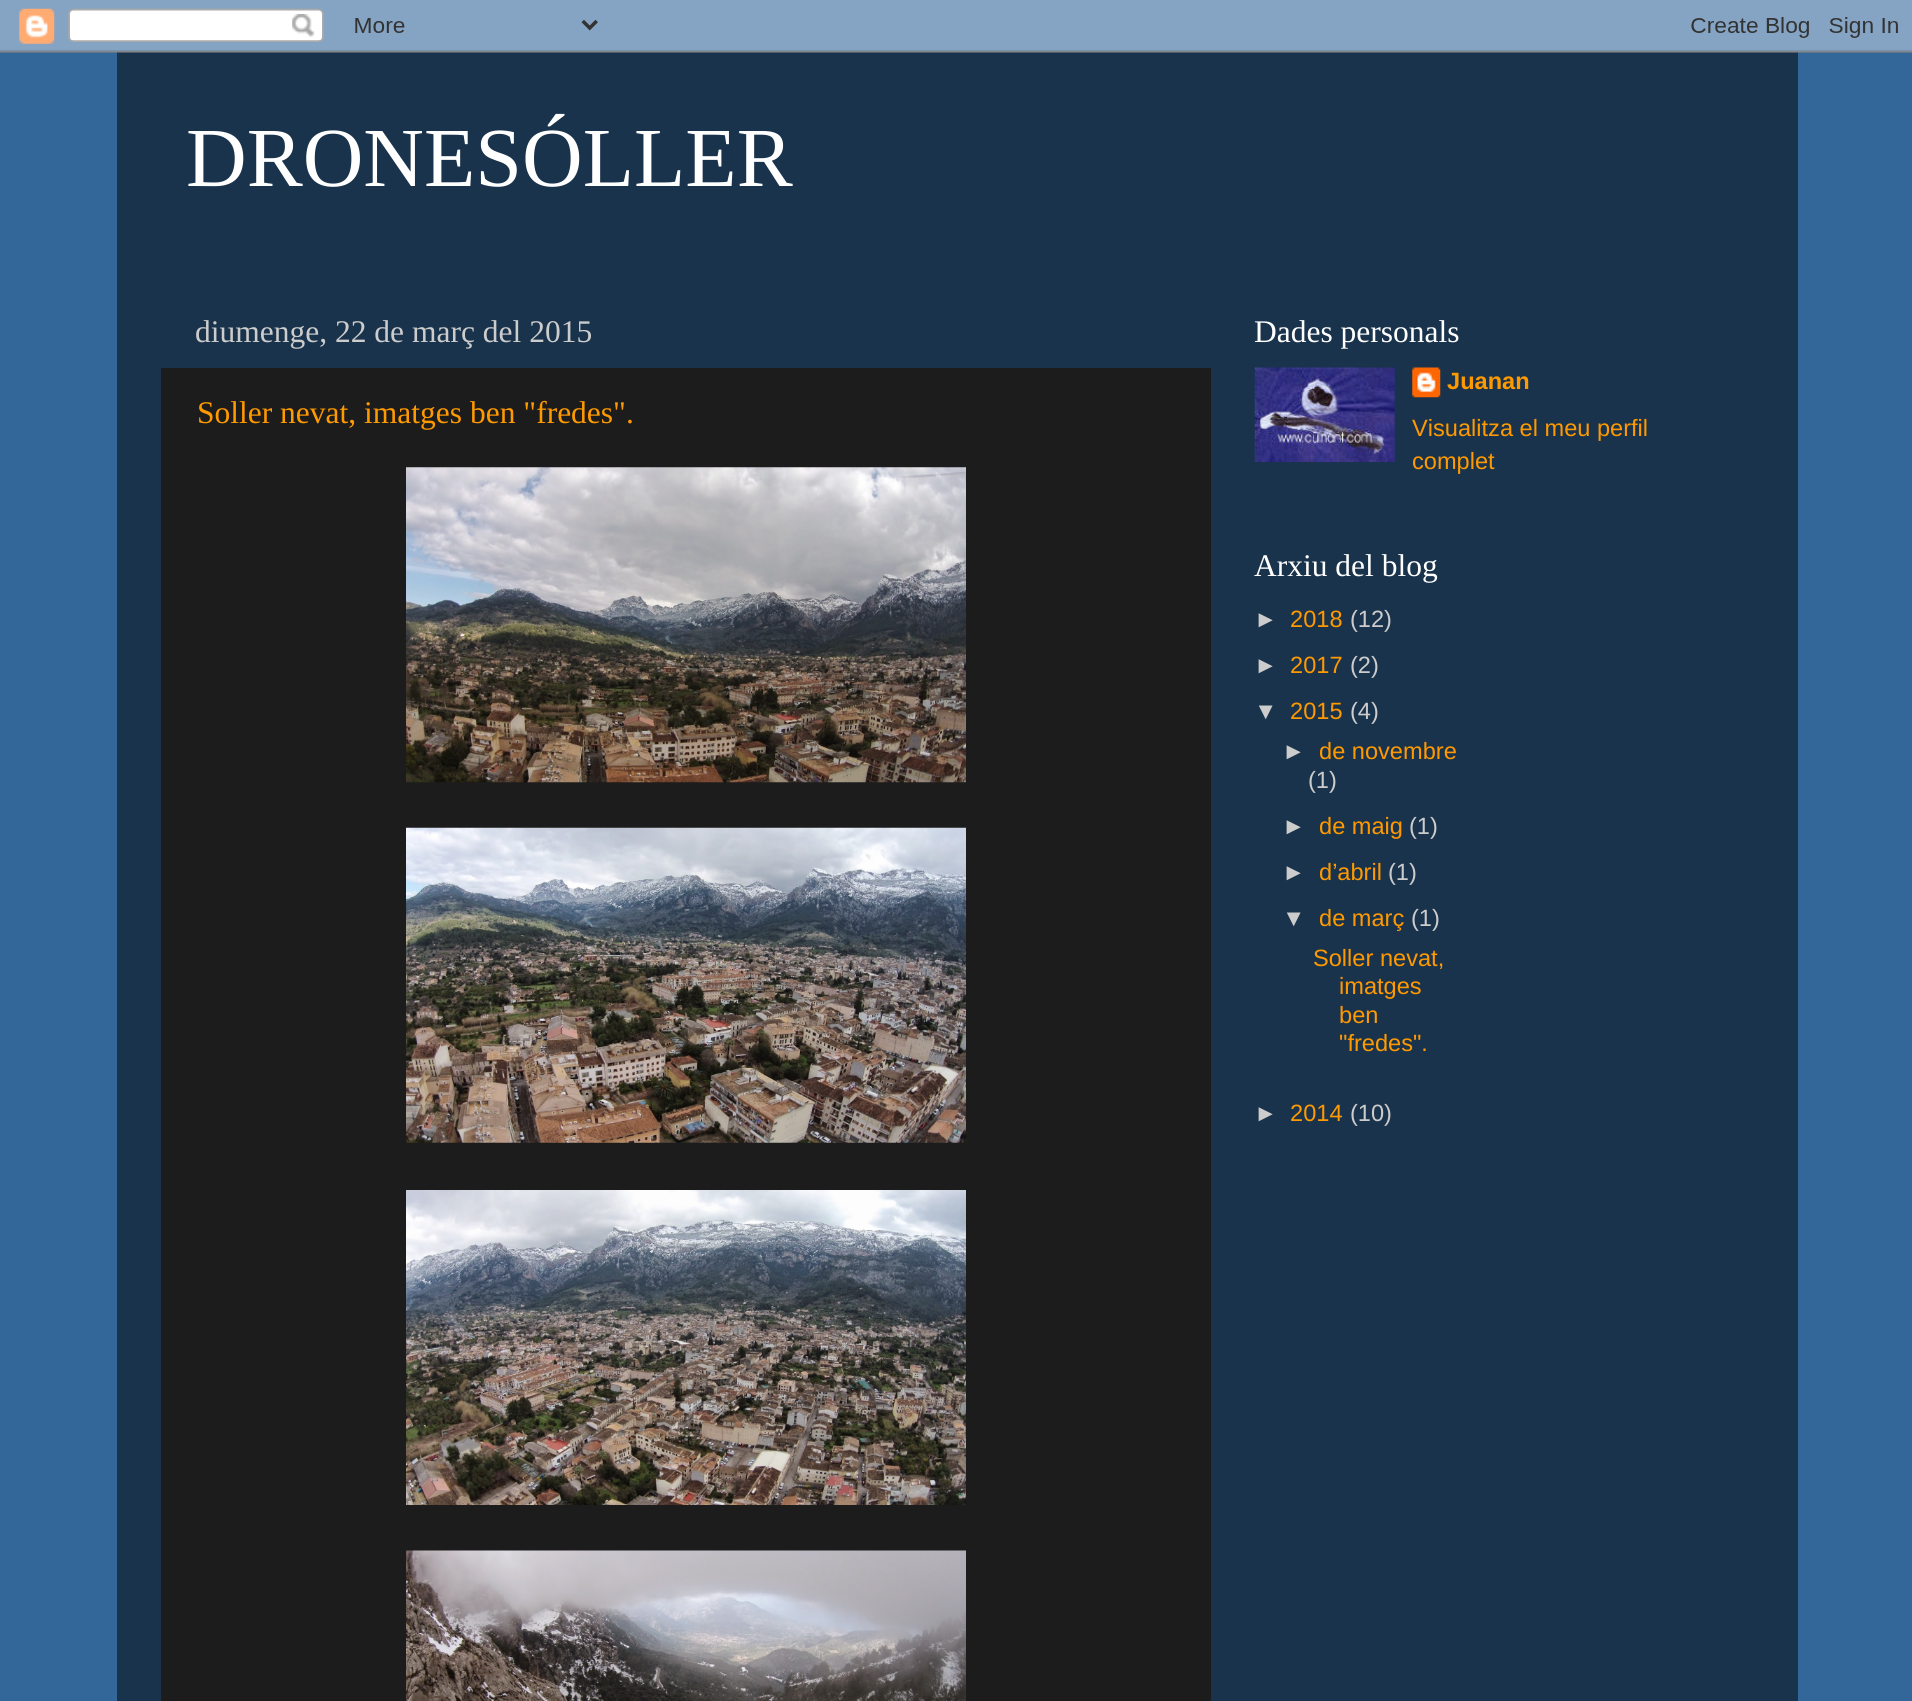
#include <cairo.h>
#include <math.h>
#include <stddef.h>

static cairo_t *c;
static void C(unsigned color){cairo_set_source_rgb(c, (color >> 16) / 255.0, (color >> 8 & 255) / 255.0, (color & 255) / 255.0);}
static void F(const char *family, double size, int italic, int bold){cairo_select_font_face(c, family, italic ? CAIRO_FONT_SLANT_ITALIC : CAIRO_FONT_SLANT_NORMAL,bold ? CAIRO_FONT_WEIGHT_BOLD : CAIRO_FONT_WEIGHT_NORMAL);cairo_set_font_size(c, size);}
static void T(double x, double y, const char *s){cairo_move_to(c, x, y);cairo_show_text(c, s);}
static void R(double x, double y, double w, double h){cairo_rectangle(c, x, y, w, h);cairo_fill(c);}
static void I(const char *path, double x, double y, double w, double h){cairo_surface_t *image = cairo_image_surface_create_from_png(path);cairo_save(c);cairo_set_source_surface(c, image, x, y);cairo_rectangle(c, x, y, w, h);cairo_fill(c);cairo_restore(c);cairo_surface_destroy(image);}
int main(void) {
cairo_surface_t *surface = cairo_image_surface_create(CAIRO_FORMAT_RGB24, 1912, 1701);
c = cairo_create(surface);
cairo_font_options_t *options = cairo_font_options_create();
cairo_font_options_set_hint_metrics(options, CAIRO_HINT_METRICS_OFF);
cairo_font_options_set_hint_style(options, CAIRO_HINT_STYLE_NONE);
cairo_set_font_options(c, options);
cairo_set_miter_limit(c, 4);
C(0x336699);
cairo_paint(c);
cairo_set_source_rgba(c,0,0,0,0.5);
R(117,52,1681,1649);
I("1.png",0,0,1912,53);
F("Liberation Serif",84,0,0);
C(0xffffff);
T(186,186,"DRONESÓLLER");
F("Liberation Serif",31.5,0,0);
C(0xcccccc);
T(195,342,"diumenge, 22 de març del 2015");
C(0x1c1c1c);
R(161,368,1050,1333);
C(0xff9900);
T(197,423,"Soller nevat, imatges ben \"fredes\".");
I("2.png",406,467,560,316);
I("3.png",406,827,560,316);
I("4.png",406,1190,560,315);
I("5.png",406,1550,560,151);
C(0xffffff);
T(1254,342,"Dades personals");
I("6.png",1254,367,141,95);
I("7.png",1412,367,29,31);
F("Liberation Sans",23.6,0,1);
C(0xff9900);
T(1447,389,"Juanan");
F("Liberation Sans",23.6,0,0);
T(1412,436,"Visualitza el meu perfil");
T(1412,469,"complet");
F("Liberation Serif",31.5,0,0);
C(0xffffff);
T(1254,576,"Arxiu del blog");
F("Liberation Sans",23.6,0,0);
C(0xcccccc);
T(1254,627,"►");
C(0xff9900);
T(1290,627,"2018");
C(0xcccccc);
T(1350,627,"(12)");
T(1254,673,"►");
C(0xff9900);
T(1290,673,"2017");
C(0xcccccc);
T(1350,673,"(2)");
T(1254,719,"▼");
C(0xff9900);
T(1290,719,"2015");
C(0xcccccc);
T(1350,719,"(4)");
T(1282,759,"►");
C(0xff9900);
T(1319,759,"de novembre");
C(0xcccccc);
T(1308,788,"(1)");
T(1282,834,"►");
C(0xff9900);
T(1319,834,"de maig");
C(0xcccccc);
T(1409,834,"(1)");
T(1282,880,"►");
C(0xff9900);
T(1319,880,"d’abril");
C(0xcccccc);
T(1388,880,"(1)");
T(1282,926,"▼");
C(0xff9900);
T(1319,926,"de març");
C(0xcccccc);
T(1411,926,"(1)");
C(0xff9900);
T(1313,966,"Soller nevat,");
T(1339,994,"imatges");
T(1339,1023,"ben");
T(1339,1051,"\"fredes\".");
C(0xcccccc);
T(1254,1121,"►");
C(0xff9900);
T(1290,1121,"2014");
C(0xcccccc);
T(1350,1121,"(10)");
cairo_surface_write_to_png(surface, "o.png");
cairo_font_options_destroy(options);
cairo_destroy(c);
cairo_surface_destroy(surface);
return 0;
}
